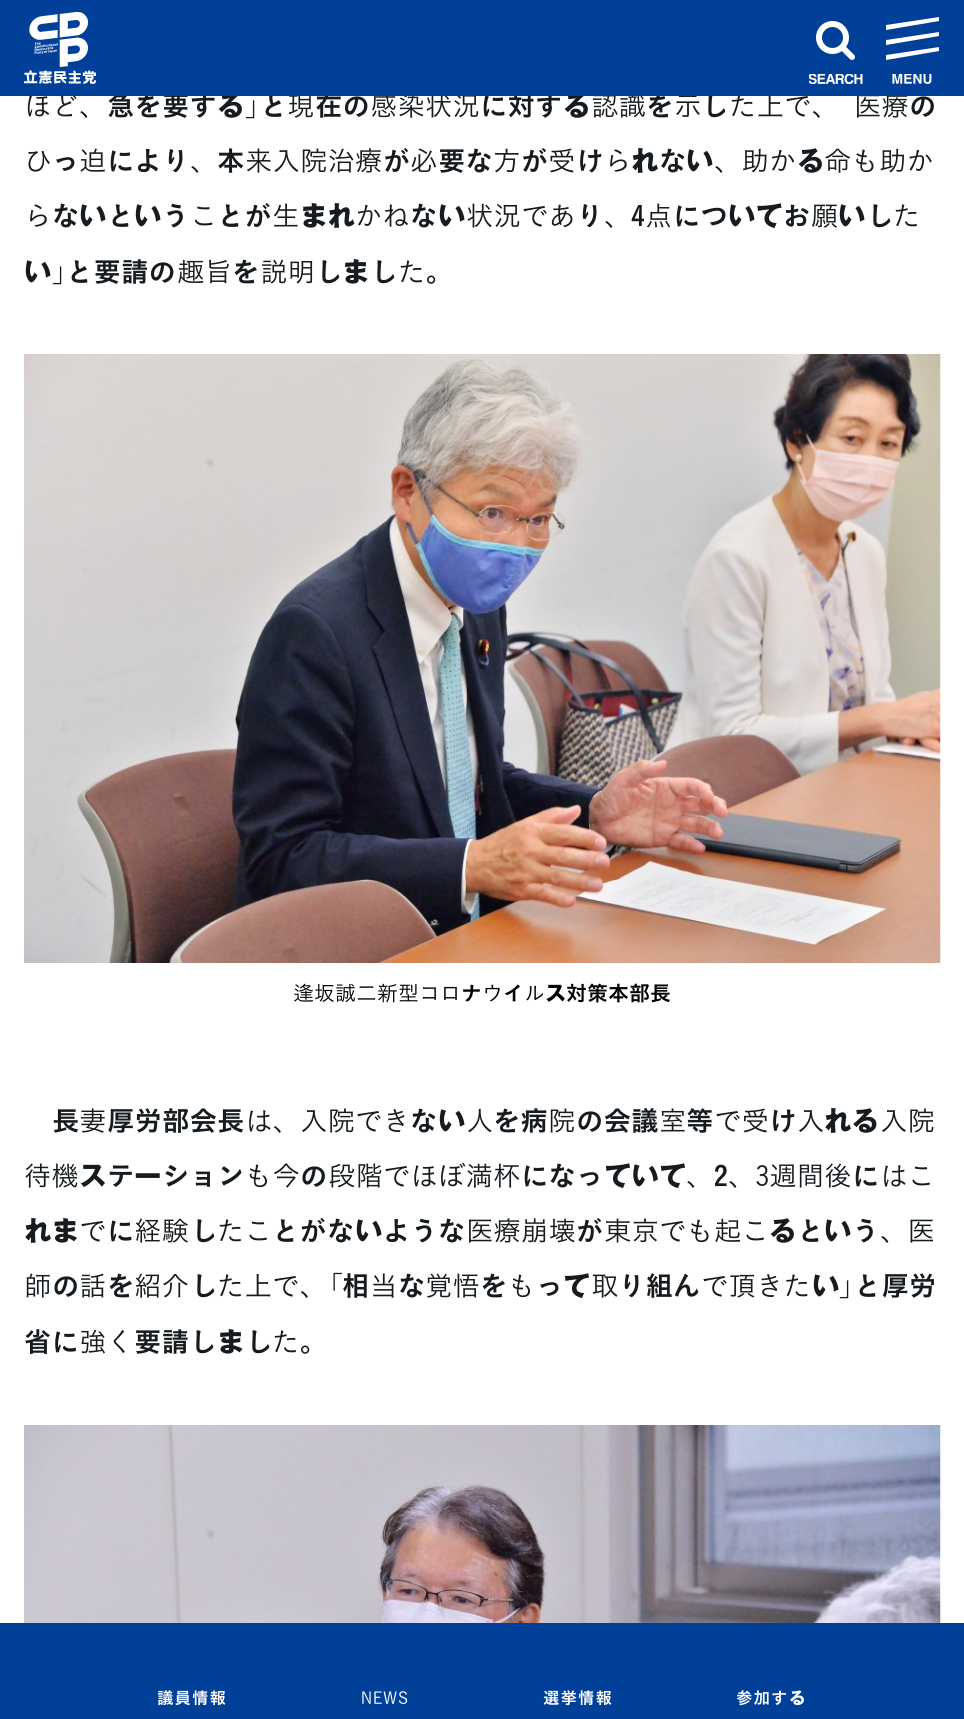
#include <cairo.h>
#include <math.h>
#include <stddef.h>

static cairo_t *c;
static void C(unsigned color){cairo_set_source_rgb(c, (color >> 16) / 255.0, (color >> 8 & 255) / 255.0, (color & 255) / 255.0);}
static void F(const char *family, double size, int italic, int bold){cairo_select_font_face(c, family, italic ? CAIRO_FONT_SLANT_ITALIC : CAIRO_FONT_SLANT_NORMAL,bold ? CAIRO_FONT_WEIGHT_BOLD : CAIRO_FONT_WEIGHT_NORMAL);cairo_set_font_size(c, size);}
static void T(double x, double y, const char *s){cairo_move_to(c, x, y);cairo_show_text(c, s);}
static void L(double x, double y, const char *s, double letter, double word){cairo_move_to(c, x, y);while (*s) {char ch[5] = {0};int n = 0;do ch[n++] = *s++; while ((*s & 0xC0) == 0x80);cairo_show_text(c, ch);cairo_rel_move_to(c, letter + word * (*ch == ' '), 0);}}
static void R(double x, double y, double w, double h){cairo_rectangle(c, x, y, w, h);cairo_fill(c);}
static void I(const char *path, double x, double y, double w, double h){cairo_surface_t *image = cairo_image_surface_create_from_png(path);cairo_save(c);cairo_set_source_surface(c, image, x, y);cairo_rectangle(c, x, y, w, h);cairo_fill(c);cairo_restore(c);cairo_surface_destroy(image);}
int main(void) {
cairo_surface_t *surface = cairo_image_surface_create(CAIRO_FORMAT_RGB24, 964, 1719);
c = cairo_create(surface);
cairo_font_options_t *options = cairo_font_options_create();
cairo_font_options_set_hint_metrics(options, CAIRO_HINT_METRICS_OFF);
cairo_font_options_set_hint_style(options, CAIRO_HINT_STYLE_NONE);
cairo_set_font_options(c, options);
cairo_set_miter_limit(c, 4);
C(0xffffff);
cairo_paint(c);
F("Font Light",27.5,0,0);
C(0x151b1e);
T(24,116,"ほど、");
F("Font SemiBold",27.5,0,0);
T(107,116,"急を要す");
F("Font",27.5,0,1);
T(217,116,"る");
F("Font SemiBold",27.5,0,0);
T(260,116,"と");
F("Font Light",27.5,0,0);
T(287,116,"現");
F("Font SemiBold",27.5,0,0);
T(315,116,"在の");
F("Font Light",27.5,0,0);
T(370,116,"感染状況");
F("Font SemiBold",27.5,0,0);
T(480,116,"に対す");
F("Font",27.5,0,1);
T(563,116,"る");
F("Font Light",27.5,0,0);
T(591,116,"認識");
F("Font SemiBold",27.5,0,0);
T(646,116,"を");
F("Font Light",27.5,0,0);
T(674,116,"示");
F("Font SemiBold",27.5,0,0);
T(701,116,"し");
F("Font Light",27.5,0,0);
T(729,116,"た上で、");
T(854,116,"医療");
C(0x004098);
R(0,0,964,96);
I("1.png",24,12,72,72);
I("2.png",809,74,54,10);
I("3.png",816,21,39,39);
I("4.png",892,74,40,10);
C(0xffffff);
cairo_new_path(c);
cairo_move_to(c,886,25);
cairo_line_to(c,939,17);
cairo_line_to(c,939,21);
cairo_line_to(c,886,30);
cairo_close_path(c);
cairo_move_to(c,886,40);
cairo_line_to(c,939,32);
cairo_line_to(c,939,36);
cairo_line_to(c,886,45);
cairo_close_path(c);
cairo_move_to(c,886,55);
cairo_line_to(c,939,47);
cairo_line_to(c,939,51);
cairo_line_to(c,886,60);
cairo_close_path(c);
cairo_fill(c);
F("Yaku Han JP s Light",27.5,0,0);
C(0x151b1e);
T(245,116,"」");
F("Font SemiBold",27.5,0,0);
T(909,116,"の");
F("Font Light",27.5,0,0);
T(24,171,"ひ");
F("Font SemiBold",27.5,0,0);
T(52,171,"っ");
F("Font Light",27.5,0,0);
T(79,171,"迫");
F("Font SemiBold",27.5,0,0);
T(107,171,"により");
F("Font Light",27.5,0,0);
T(190,171,"、");
F("Font SemiBold",27.5,0,0);
T(217,171,"本");
F("Font Light",27.5,0,0);
T(245,171,"来入院治療");
F("Font SemiBold",27.5,0,0);
T(383,171,"が");
F("Font Light",27.5,0,0);
T(410,171,"必");
F("Font SemiBold",27.5,0,0);
T(438,171,"要な");
F("Font Light",27.5,0,0);
T(493,171,"方");
F("Font SemiBold",27.5,0,0);
T(521,171,"が");
F("Font Light",27.5,0,0);
T(548,171,"受");
F("Font SemiBold",27.5,0,0);
T(576,171,"け");
F("Font Light",27.5,0,0);
T(604,171,"ら");
F("Font",27.5,0,1);
T(631,171,"れ");
F("Font SemiBold",27.5,0,0);
T(659,171,"な");
F("Font",27.5,0,1);
T(686,171,"い");
F("Font Light",27.5,0,0);
T(714,171,"、助か");
F("Font",27.5,0,1);
T(797,171,"る");
F("Font Light",27.5,0,0);
T(824,171,"命も助か");
T(24,226,"ら");
F("Font SemiBold",27.5,0,0);
T(52,226,"な");
F("Font",27.5,0,1);
T(79,226,"い");
F("Font SemiBold",27.5,0,0);
T(107,226,"と");
F("Font",27.5,0,1);
T(134,226,"い");
F("Font SemiBold",27.5,0,0);
T(162,226,"う");
F("Font Light",27.5,0,0);
T(190,226,"こ");
F("Font SemiBold",27.5,0,0);
T(217,226,"とが");
F("Font Light",27.5,0,0);
T(272,226,"生");
F("Font",27.5,0,1);
T(300,226,"まれ");
F("Font Light",27.5,0,0);
T(355,226,"かね");
F("Font SemiBold",27.5,0,0);
T(410,226,"な");
F("Font",27.5,0,1);
T(438,226,"い");
F("Font Light",27.5,0,0);
T(466,226,"状況であ");
F("Font SemiBold",27.5,0,0);
T(576,226,"り");
F("Font Light",27.5,0,0);
T(604,226,"、");
F("Font SemiBold",27.5,0,0);
T(631,226,"4");
F("Font Light",27.5,0,0);
T(645,226,"点");
F("Font SemiBold",27.5,0,0);
T(673,226,"につ");
F("Font",27.5,0,1);
T(728,226,"いて");
F("Font SemiBold",27.5,0,0);
T(783,226,"お");
F("Font Light",27.5,0,0);
T(811,226,"願");
F("Font",27.5,0,1);
T(838,226,"い");
F("Font SemiBold",27.5,0,0);
T(866,226,"し");
F("Font Light",27.5,0,0);
T(893,226,"た");
F("Font",27.5,0,1);
T(24,282,"い");
F("Yaku Han JP s Light",27.5,0,0);
T(52,282,"」");
F("Font SemiBold",27.5,0,0);
T(66,282,"と要請の");
F("Font Light",27.5,0,0);
T(177,282,"趣旨");
F("Font SemiBold",27.5,0,0);
T(232,282,"を");
F("Font Light",27.5,0,0);
T(260,282,"説明");
F("Font SemiBold",27.5,0,0);
T(315,282,"し");
F("Font",27.5,0,1);
T(342,282,"ま");
F("Font SemiBold",27.5,0,0);
T(370,282,"し");
F("Font Light",27.5,0,0);
T(398,282,"た。");
I("5.png",24,354,917,609);
F("Font Light",21,0,0);
C(0x020202);
T(293,1001,"逢坂誠二新型コロ");
F("Font SemiBold",21,0,0);
T(461,1001,"ナ");
F("Font Light",21,0,0);
T(482,1001,"ウ");
F("Font SemiBold",21,0,0);
T(503,1001,"イ");
F("Font Light",21,0,0);
T(524,1001,"ル");
F("Font",21,0,1);
T(545,1001,"ス");
F("Font SemiBold",21,0,0);
T(566,1001,"対策本部長");
F("Font SemiBold",27.5,0,0);
C(0x151b1e);
T(52,1131,"長");
F("Font Light",27.5,0,0);
T(79,1131,"妻");
F("Font SemiBold",27.5,0,0);
T(107,1131,"厚労部会長");
F("Font Light",27.5,0,0);
T(245,1131,"は、入院でき");
F("Font SemiBold",27.5,0,0);
T(410,1131,"な");
F("Font",27.5,0,1);
T(438,1131,"い");
F("Font Light",27.5,0,0);
T(466,1131,"人");
F("Font SemiBold",27.5,0,0);
T(493,1131,"を病");
F("Font Light",27.5,0,0);
T(548,1131,"院");
F("Font SemiBold",27.5,0,0);
T(576,1131,"の会議");
F("Font Light",27.5,0,0);
T(659,1131,"室");
F("Font SemiBold",27.5,0,0);
T(686,1131,"等");
F("Font Light",27.5,0,0);
T(714,1131,"で受");
F("Font SemiBold",27.5,0,0);
T(769,1131,"け");
F("Font Light",27.5,0,0);
T(797,1131,"入");
F("Font",27.5,0,1);
T(824,1131,"れる");
F("Font Light",27.5,0,0);
T(880,1131,"入院");
T(24,1186,"待機");
F("Font",27.5,0,1);
T(79,1186,"ス");
F("Font SemiBold",27.5,0,0);
T(107,1186,"テ");
F("Font",27.5,0,1);
T(134,1186,"ー");
F("Font SemiBold",27.5,0,0);
T(162,1186,"ション");
F("Font Light",27.5,0,0);
T(245,1186,"も今");
F("Font SemiBold",27.5,0,0);
T(300,1186,"の");
F("Font Light",27.5,0,0);
T(328,1186,"段階でほぼ満杯");
F("Font SemiBold",27.5,0,0);
T(521,1186,"になっ");
F("Font",27.5,0,1);
T(604,1186,"ていて");
F("Font SemiBold",27.5,0,0);
T(714,1186,"2");
F("Font Light",27.5,0,0);
T(728,1186,"、3週間後");
F("Font SemiBold",27.5,0,0);
T(852,1186,"に");
F("Font Light",27.5,0,0);
T(880,1186,"はこ");
T(686,1186,"、");
F("Font",27.5,0,1);
T(24,1241,"れま");
F("Font Light",27.5,0,0);
T(79,1241,"で");
F("Font SemiBold",27.5,0,0);
T(107,1241,"に");
F("Font Light",27.5,0,0);
T(134,1241,"経験");
F("Font SemiBold",27.5,0,0);
T(190,1241,"し");
F("Font Light",27.5,0,0);
T(217,1241,"たこ");
F("Font SemiBold",27.5,0,0);
T(272,1241,"とがな");
F("Font",27.5,0,1);
T(355,1241,"い");
F("Font SemiBold",27.5,0,0);
T(383,1241,"ような");
F("Font Light",27.5,0,0);
T(466,1241,"医療崩壊");
F("Font SemiBold",27.5,0,0);
T(576,1241,"が");
F("Font Light",27.5,0,0);
T(604,1241,"東京でも起こ");
F("Font",27.5,0,1);
T(769,1241,"る");
F("Font SemiBold",27.5,0,0);
T(797,1241,"と");
F("Font",27.5,0,1);
T(824,1241,"い");
F("Font SemiBold",27.5,0,0);
T(852,1241,"う");
F("Font Light",27.5,0,0);
T(880,1241,"、医");
T(24,1296,"師");
F("Font SemiBold",27.5,0,0);
T(52,1296,"の");
F("Font Light",27.5,0,0);
T(79,1296,"話");
F("Font SemiBold",27.5,0,0);
T(107,1296,"を");
F("Font Light",27.5,0,0);
T(134,1296,"紹介");
F("Font SemiBold",27.5,0,0);
T(190,1296,"し");
F("Font Light",27.5,0,0);
T(217,1296,"た上で、");
F("Yaku Han JP s Light",27.5,0,0);
T(328,1296,"「");
F("Font SemiBold",27.5,0,0);
T(342,1296,"相");
F("Font Light",27.5,0,0);
T(370,1296,"当");
F("Font SemiBold",27.5,0,0);
T(398,1296,"な");
F("Font Light",27.5,0,0);
T(425,1296,"覚悟");
F("Font SemiBold",27.5,0,0);
T(480,1296,"を");
F("Font Light",27.5,0,0);
T(508,1296,"も");
F("Font SemiBold",27.5,0,0);
T(536,1296,"っ");
F("Font",27.5,0,1);
T(563,1296,"て");
F("Font Light",27.5,0,0);
T(591,1296,"取");
F("Font SemiBold",27.5,0,0);
T(618,1296,"り組ん");
F("Font Light",27.5,0,0);
T(701,1296,"で頂きた");
F("Font",27.5,0,1);
T(812,1296,"い");
F("Yaku Han JP s Light",27.5,0,0);
T(839,1296,"」");
F("Font SemiBold",27.5,0,0);
T(854,1296,"と厚労");
T(24,1352,"省に");
F("Font Light",27.5,0,0);
T(79,1352,"強く");
F("Font SemiBold",27.5,0,0);
T(134,1352,"要請し");
F("Font",27.5,0,1);
T(217,1352,"ま");
F("Font SemiBold",27.5,0,0);
T(245,1352,"し");
F("Font Light",27.5,0,0);
T(272,1352,"た。");
I("6.png",24,1425,917,198);
C(0x004098);
R(0,1623,964,96);
F("Font SemiBold",16.5,0,0);
C(0xffffff);
L(157,1704,"議員情報",1,0);
F("Font Light",16.5,0,0);
L(361,1704,"NEWS",1,0);
F("Font SemiBold",16.5,0,0);
L(543,1704,"選挙情報",1,0);
L(736,1704,"参加す",1,0);
F("Font",16.5,0,1);
L(789,1704,"る",1,0);
cairo_surface_write_to_png(surface, "o.png");
cairo_font_options_destroy(options);
cairo_destroy(c);
cairo_surface_destroy(surface);
return 0;
}
